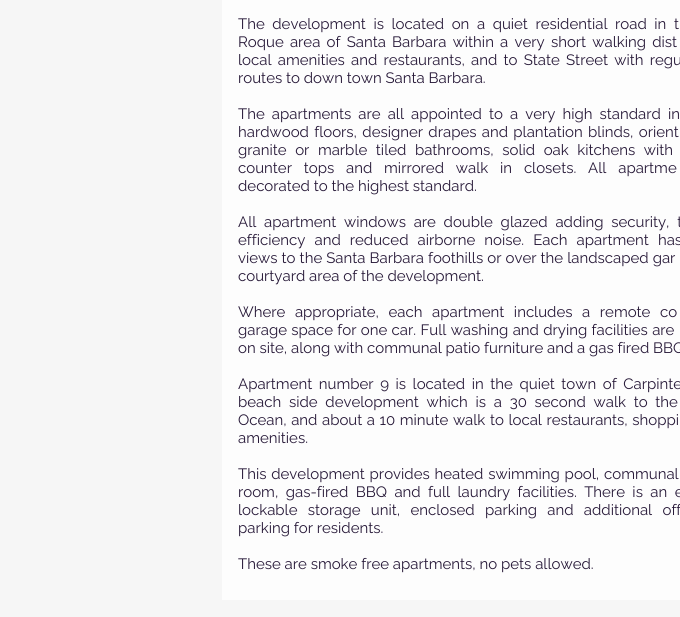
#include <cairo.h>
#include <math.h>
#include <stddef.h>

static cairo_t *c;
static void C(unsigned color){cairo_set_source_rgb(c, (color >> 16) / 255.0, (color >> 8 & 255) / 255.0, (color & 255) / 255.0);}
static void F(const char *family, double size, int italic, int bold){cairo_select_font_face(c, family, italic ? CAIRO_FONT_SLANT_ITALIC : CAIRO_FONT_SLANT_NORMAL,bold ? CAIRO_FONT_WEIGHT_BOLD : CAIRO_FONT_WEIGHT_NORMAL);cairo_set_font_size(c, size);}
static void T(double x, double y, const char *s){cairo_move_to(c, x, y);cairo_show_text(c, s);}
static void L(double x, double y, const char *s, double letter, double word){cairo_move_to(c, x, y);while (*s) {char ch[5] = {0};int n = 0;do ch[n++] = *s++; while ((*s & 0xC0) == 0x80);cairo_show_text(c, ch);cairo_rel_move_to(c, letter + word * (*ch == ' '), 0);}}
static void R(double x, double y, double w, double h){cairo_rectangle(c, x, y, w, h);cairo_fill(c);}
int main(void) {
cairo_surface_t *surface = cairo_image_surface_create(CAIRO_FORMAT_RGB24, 680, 617);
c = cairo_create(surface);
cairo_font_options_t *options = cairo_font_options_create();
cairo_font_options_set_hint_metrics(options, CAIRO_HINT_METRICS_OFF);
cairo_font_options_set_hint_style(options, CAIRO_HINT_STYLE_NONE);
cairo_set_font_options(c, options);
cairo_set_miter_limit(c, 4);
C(0xf6f6f6);
cairo_paint(c);
C(0xfdfdfd);
R(222,0,458,600);
F("Raleway",15,0,0);
C(0x281a39);
L(238,29,"The development is located on a quiet residential road in t",0,3.75);
L(238,47,"Roque area of Santa Barbara within a very short walking dist",0,2.4);
L(238,65,"local amenities and restaurants, and to State Street with regu",0,2.4);
T(238,83,"routes to down town Santa Barbara.");
L(238,119,"The apartments are all appointed to a very high standard in",0,3.25);
L(238,137,"hardwood floors, designer drapes and plantation blinds, orient",0,1.5);
L(238,155,"granite or marble tiled bathrooms, solid oak kitchens with",0,4.75);
L(238,173,"counter tops and mirrored walk in closets. All apartme",0,8);
T(238,191,"decorated to the highest standard.");
L(238,227,"All apartment windows are double glazed adding security, t",0,3.9);
L(238,245,"efficiency and reduced airborne noise. Each apartment has",0,5.25);
L(238,263,"views to the Santa Barbara foothills or over the landscaped gar",0,.25);
T(238,281,"courtyard area of the development.");
L(238,317,"Where appropriate, each apartment includes a remote co",0,5.75);
L(238,335,"garage space for one car. Full washing and drying facilities are",0,.5);
T(238,353,"on site, along with communal patio furniture and a gas fired BBQ");
L(238,389,"Apartment number 9 is located in the quiet town of Carpinte",0,2.75);
L(238,407,"beach side development which is a 30 second walk to the",0,3.9);
L(238,425,"Ocean, and about a 10 minute walk to local restaurants, shoppi",0,.75);
T(238,443,"amenities.");
L(238,479,"This development provides heated swimming pool, communal",0,1);
L(238,497,"room, gas-fired BBQ and full laundry facilities. There is an e",0,3.6);
L(238,515,"lockable storage unit, enclosed parking and additional off",0,6.5);
T(238,533,"parking for residents.");
T(238,569,"These are smoke free apartments, no pets allowed.");
cairo_surface_write_to_png(surface, "o.png");
cairo_font_options_destroy(options);
cairo_destroy(c);
cairo_surface_destroy(surface);
return 0;
}
